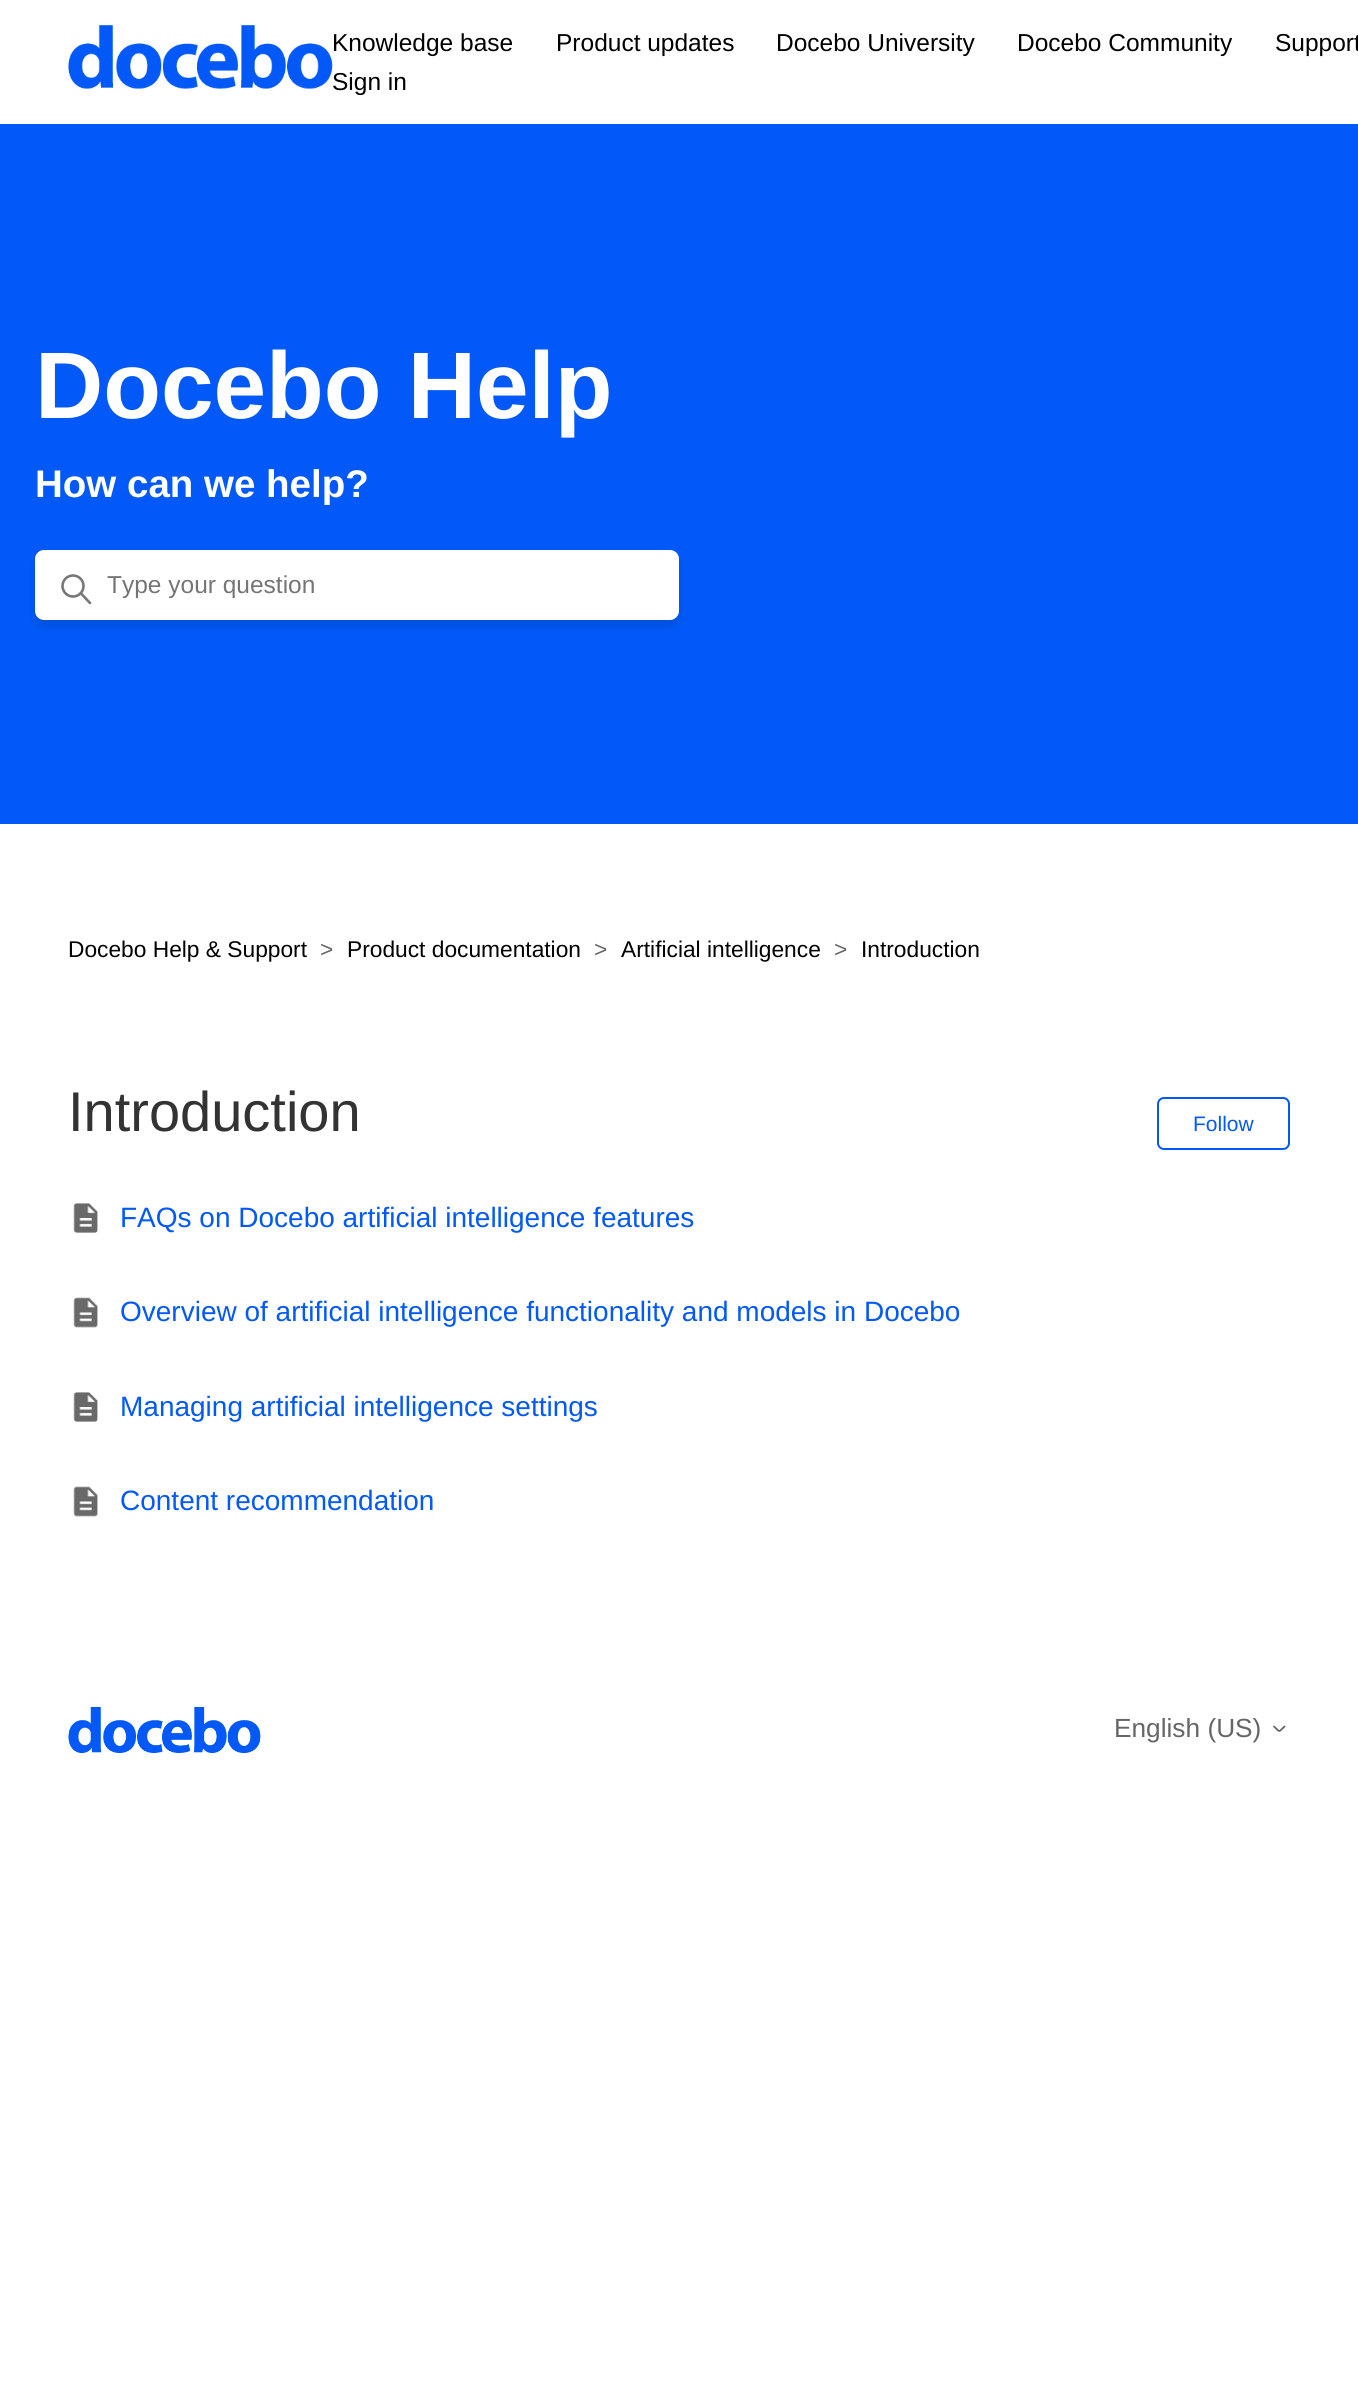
#include <cairo.h>
#include <math.h>
#include <stddef.h>

static cairo_t *c;
static void C(unsigned color){cairo_set_source_rgb(c, (color >> 16) / 255.0, (color >> 8 & 255) / 255.0, (color & 255) / 255.0);}
static void F(const char *family, double size, int italic, int bold){cairo_select_font_face(c, family, italic ? CAIRO_FONT_SLANT_ITALIC : CAIRO_FONT_SLANT_NORMAL,bold ? CAIRO_FONT_WEIGHT_BOLD : CAIRO_FONT_WEIGHT_NORMAL);cairo_set_font_size(c, size);}
static void T(double x, double y, const char *s){cairo_move_to(c, x, y);cairo_show_text(c, s);}
static void R(double x, double y, double w, double h){cairo_rectangle(c, x, y, w, h);cairo_fill(c);}
static void Q(double x, double y, double w, double h, double r){cairo_new_sub_path(c);cairo_arc(c, x + w - r, y + h - r, r, 0, M_PI / 2);cairo_arc(c, x + r, y + h - r, r, M_PI / 2, M_PI);cairo_arc(c, x + r, y + r, r, M_PI, 1.5 * M_PI);cairo_arc(c, x + w - r, y + r, r, 1.5 * M_PI, 2 * M_PI);cairo_close_path(c);}
static void S(double x, double y, double w, double h, double r, double blur, double alpha){cairo_push_group_with_content(c, CAIRO_CONTENT_ALPHA);cairo_set_operator(c, CAIRO_OPERATOR_SOURCE);for (int i = 15; i >= -15 && fmin(w, h) + blur * i / 3 > 0; i -= 2) {double e = blur * i / 6;cairo_set_source_rgba(c, 0, 0, 0, alpha * erfc((i - 1) / 8.5) / 2);Q(x - e, y - e, w + 2 * e, h + 2 * e, fmax(0, fmin(r + e + blur * .6, fmin(w, h) / 2 + e)));cairo_fill(c);}cairo_pattern_t *soft = cairo_pop_group(c);cairo_mask(c, soft);cairo_pattern_destroy(soft);}
static void I(const char *path, double x, double y, double w, double h){cairo_surface_t *image = cairo_image_surface_create_from_png(path);cairo_save(c);cairo_set_source_surface(c, image, x, y);cairo_rectangle(c, x, y, w, h);cairo_fill(c);cairo_restore(c);cairo_surface_destroy(image);}
int main(void) {
cairo_surface_t *surface = cairo_image_surface_create(CAIRO_FORMAT_RGB24, 1358, 2384);
c = cairo_create(surface);
cairo_font_options_t *options = cairo_font_options_create();
cairo_font_options_set_hint_metrics(options, CAIRO_HINT_METRICS_OFF);
cairo_font_options_set_hint_style(options, CAIRO_HINT_STYLE_NONE);
cairo_set_font_options(c, options);
cairo_set_miter_limit(c, 4);
C(0xffffff);
cairo_paint(c);
I("1.png",68,25,265,64);
F("Liberation Sans",24.5,0,0);
C(0x000000);
T(332,51,"Knowledge base");
T(556,51,"Product updates");
T(776,51,"Docebo University");
T(1017,51,"Docebo Community");
T(1275,51,"Support");
T(332,90,"Sign in");
C(0x0259f7);
R(0,124,1358,700);
F("Liberation Sans",94.5,0,1);
C(0xffffff);
T(35,418,"Docebo Help");
F("Liberation Sans",38.5,0,1);
T(35,497,"How can we help?");
C(0x000000);
S(35,557,644,70,9,3.5,.1);
C(0xffffff);
Q(36,551,642,68,8);
cairo_fill_preserve(c);
cairo_stroke(c);
cairo_arc(c,73,586,10.5,0,2 * M_PI);
C(0x777777);
cairo_set_line_width(c,2.6);
cairo_stroke(c);
cairo_new_path(c);
cairo_move_to(c,90,603);
cairo_line_to(c,81,593.5);
cairo_set_line_cap(c,CAIRO_LINE_CAP_ROUND);
cairo_stroke(c);
F("Liberation Sans",24.5,0,0);
C(0x757575);
T(107,593,"Type your question");
F("Liberation Sans",22.75,0,0);
C(0x000000);
T(68,957,"Docebo Help & Support");
C(0x666666);
T(320,957,">");
C(0x000000);
T(347,957,"Product documentation");
C(0x666666);
T(594,957,">");
C(0x000000);
T(621,957,"Artificial intelligence");
C(0x666666);
T(834,957,">");
C(0x000000);
T(861,957,"Introduction");
F("Liberation Sans",56,0,0);
C(0x333333);
T(68,1131,"Introduction");
Q(1158,1098,131,51,6);
C(0x0259f7);
cairo_set_line_width(c,2);
cairo_set_line_cap(c,CAIRO_LINE_CAP_BUTT);
cairo_stroke(c);
F("Liberation Sans",21,0,0);
T(1193,1131,"Follow");
I("2.png",73,1203,25,30);
F("Liberation Sans",28,0,0);
T(120,1227,"FAQs on Docebo artificial intelligence features");
I("3.png",73,1297,25,31);
T(120,1321,"Overview of artificial intelligence functionality and models in Docebo");
I("2.png",73,1392,25,30);
T(120,1416,"Managing artificial intelligence settings");
I("3.png",73,1486,25,31);
T(120,1510,"Content recommendation");
I("4.png",68,1707,193,46);
F("Liberation Sans",26.25,0,0);
C(0x666666);
T(1114,1737,"English (US)");
cairo_new_path(c);
cairo_move_to(c,1274,1726.5);
cairo_curve_to(c,1280.5,1732.5,1278,1732.5,1284.5,1726.5);
cairo_set_line_width(c,1.8);
cairo_set_line_cap(c,CAIRO_LINE_CAP_ROUND);
cairo_stroke(c);
cairo_surface_write_to_png(surface, "o.png");
cairo_font_options_destroy(options);
cairo_destroy(c);
cairo_surface_destroy(surface);
return 0;
}
